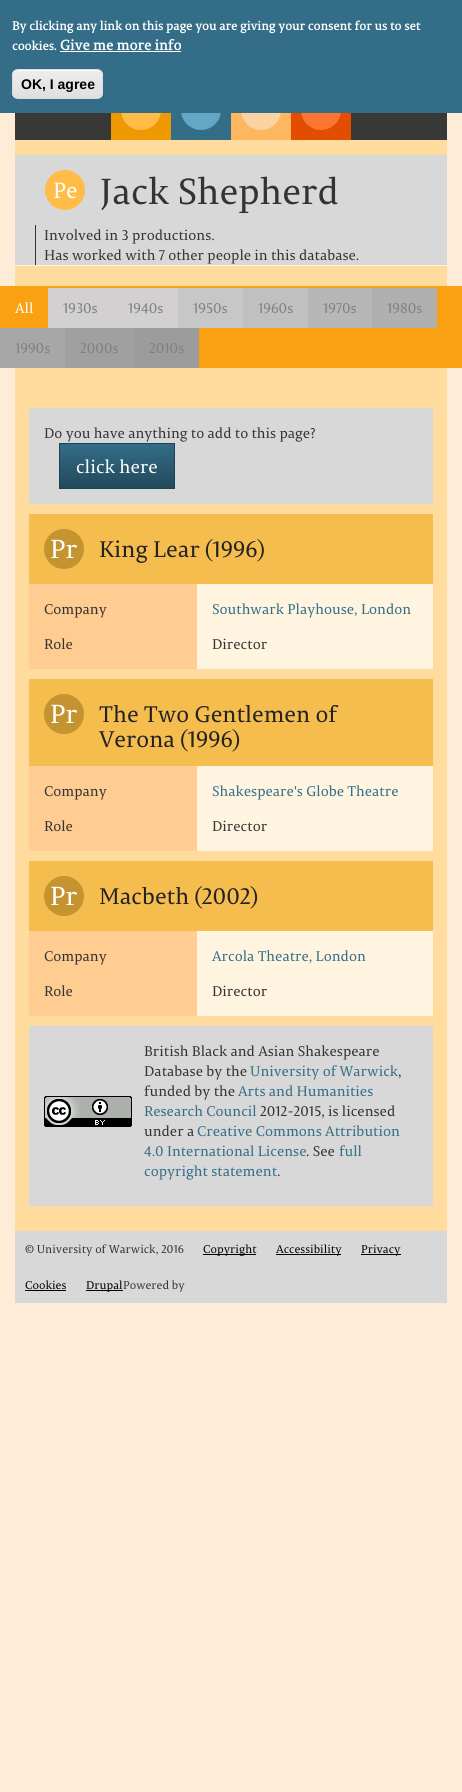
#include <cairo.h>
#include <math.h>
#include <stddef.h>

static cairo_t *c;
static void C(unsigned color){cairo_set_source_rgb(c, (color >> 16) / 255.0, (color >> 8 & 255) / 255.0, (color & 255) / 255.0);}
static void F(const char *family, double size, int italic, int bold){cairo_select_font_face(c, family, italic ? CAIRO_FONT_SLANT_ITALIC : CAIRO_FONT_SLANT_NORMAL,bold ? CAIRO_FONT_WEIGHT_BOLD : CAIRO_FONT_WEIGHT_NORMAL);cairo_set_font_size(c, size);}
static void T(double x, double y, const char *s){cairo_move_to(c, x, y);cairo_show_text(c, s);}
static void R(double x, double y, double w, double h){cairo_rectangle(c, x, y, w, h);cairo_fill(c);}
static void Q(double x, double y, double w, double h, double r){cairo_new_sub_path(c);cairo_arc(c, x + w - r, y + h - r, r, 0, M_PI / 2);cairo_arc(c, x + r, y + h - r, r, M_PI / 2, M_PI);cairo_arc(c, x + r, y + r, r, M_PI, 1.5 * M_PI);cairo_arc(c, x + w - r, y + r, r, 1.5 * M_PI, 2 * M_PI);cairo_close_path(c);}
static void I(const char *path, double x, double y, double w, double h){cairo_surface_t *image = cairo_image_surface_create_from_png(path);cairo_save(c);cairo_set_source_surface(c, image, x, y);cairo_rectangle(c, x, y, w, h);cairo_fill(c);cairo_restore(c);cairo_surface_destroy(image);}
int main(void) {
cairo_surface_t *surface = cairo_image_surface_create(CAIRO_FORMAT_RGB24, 462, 1792);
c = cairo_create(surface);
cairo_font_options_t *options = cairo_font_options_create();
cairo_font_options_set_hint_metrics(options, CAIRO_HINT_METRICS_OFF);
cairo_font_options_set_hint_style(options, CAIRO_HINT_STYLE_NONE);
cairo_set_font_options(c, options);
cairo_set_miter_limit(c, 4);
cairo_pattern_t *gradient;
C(0xffecd6);
cairo_paint(c);
C(0x383837);
R(15,113,432,27);
C(0xee9902);
R(111,113,60,27);
C(0xffbc47);
cairo_arc(c,141,110,20,0,2 * M_PI);
cairo_fill(c);
C(0x336d88);
R(171,113,60,27);
C(0x63a6c5);
cairo_arc(c,201,110,20,0,2 * M_PI);
cairo_fill(c);
C(0xffb661);
R(231,113,60,27);
C(0xfbd2a2);
cairo_arc(c,261,110,20,0,2 * M_PI);
cairo_fill(c);
C(0xe24d02);
R(291,113,60,27);
C(0xfd7530);
cairo_arc(c,321,110,20,0,2 * M_PI);
cairo_fill(c);
C(0x336d88);
R(0,0,462,113);
F("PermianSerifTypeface",12,0,1);
C(0xffffff);
T(12,30,"By clicking any link on this page you are giving your consent for us to set");
T(12,50,"cookies.");
F("PermianSerifTypeface",14,0,1);
T(60,50,"Give me more info");
R(60,51,121,1);
cairo_save(c);
Q(12,69,91,30,6);
cairo_clip(c);
gradient = cairo_pattern_create_linear(58,70,58,98);
cairo_pattern_add_color_stop_rgba(gradient,.05,0.929,0.929,0.929,1);
cairo_pattern_add_color_stop_rgba(gradient,1,0.875,0.875,0.875,1);
cairo_set_source(c,gradient);
cairo_pattern_destroy(gradient);
R(12,70,91,28);
cairo_restore(c);
cairo_new_path(c);
cairo_move_to(c,18,71);
cairo_line_to(c,97,71);
cairo_curve_to(c,100,71,102,73,102,76);
cairo_curve_to(c,102,67,89,70,84,70);
cairo_line_to(c,31,70);
cairo_curve_to(c,26,70,13,67,13,76);
cairo_curve_to(c,13,73,15,71,18,71);
cairo_close_path(c);
cairo_fill(c);
Q(12.5,69.5,90,29,5.5);
C(0xdcdcdc);
cairo_set_line_width(c,1);
cairo_stroke(c);
F("Liberation Sans",14,0,1);
C(0x000000);
T(21,89,"OK, I agree");
C(0xffdc9d);
R(15,140,432,15);
C(0xfff4e0);
R(15,265,432,1);
C(0xd8d8d8);
R(15,155,432,110);
C(0xffbc47);
cairo_new_path(c);
cairo_arc(c,65,190,20,0,2 * M_PI);
cairo_fill(c);
F("PermianSerifTypeface",22,0,0);
C(0xffffff);
T(53,198,"Pe");
F("PermianSerifTypeface",36,0,0);
C(0x333333);
T(100,204,"Jack Shepherd");
R(35,225,1,40);
F("PermianSerifTypeface",14,0,0);
T(44,240,"Involved in 3 productions.");
T(44,260,"Has worked with 7 other people in this database.");
C(0xffdc9d);
R(15,266,432,965);
C(0xf9a113);
R(0,286,462,82);
C(0xffffff);
T(15,313,"All");
C(0xd2d0d0);
R(48,288,130,40);
C(0x808080);
T(63,313,"1930s");
T(128,313,"1940s");
C(0xc7c7c7);
R(178,288,65,40);
C(0x808080);
T(193,313,"1950s");
C(0xc0c0c0);
R(243,288,65,40);
C(0x808080);
T(258,313,"1960s");
C(0xb7b7b7);
R(308,288,64,40);
C(0x808080);
T(323,313,"1970s");
C(0xb0b0b0);
R(372,288,65,40);
C(0x808080);
T(387,313,"1980s");
C(0xa7a7a7);
R(0,328,65,40);
C(0x808080);
T(15,353,"1990s");
C(0xa0a0a0);
R(65,328,69,40);
C(0x808080);
T(80,353,"2000s");
C(0x9c9c9c);
R(134,328,65,40);
C(0x808080);
T(149,353,"2010s");
C(0xd8d8d8);
R(29,408,404,96);
C(0x333333);
T(44,438,"Do you have anything to add to this page?");
gradient = cairo_pattern_create_linear(117,444,117,488);
cairo_pattern_add_color_stop_rgba(gradient,0,0.2,0.427,0.533,1);
cairo_pattern_add_color_stop_rgba(gradient,1,0.133,0.286,0.357,1);
cairo_set_source(c,gradient);
cairo_pattern_destroy(gradient);
R(60,444,114,44);
cairo_rectangle(c,59.5,443.5,115,45);
C(0x204354);
cairo_stroke(c);
F("PermianSerifTypeface",18,0,0);
C(0xffffff);
T(76,473,"click here");
C(0xf5bc4e);
R(29,514,404,70);
C(0xc69331);
cairo_new_path(c);
cairo_arc(c,64,549,20,0,2 * M_PI);
cairo_fill(c);
F("PermianSerifTypeface",26,0,0);
C(0xffffff);
T(50,558,"Pr");
F("PermianSerifTypeface",22.4,0,0);
C(0x222222);
T(99,557,"King Lear (1996)");
C(0xffcc91);
R(29,584,168,85);
F("PermianSerifTypeface",14,0,0);
C(0x333333);
T(44,614,"Company");
C(0xfff4e0);
R(197,584,236,85);
C(0x336d88);
T(212,614,"Southwark Playhouse, London");
C(0x333333);
T(44,649,"Role");
T(212,649,"Director");
C(0xf5bc4e);
R(29,679,404,87);
C(0xc69331);
cairo_new_path(c);
cairo_arc(c,64,714,20,0,2 * M_PI);
cairo_fill(c);
F("PermianSerifTypeface",26,0,0);
C(0xffffff);
T(50,723,"Pr");
F("PermianSerifTypeface",22.4,0,0);
C(0x222222);
T(99,722,"The Two Gentlemen of");
T(99,747,"Verona (1996)");
C(0xffcc91);
R(29,766,168,85);
F("PermianSerifTypeface",14,0,0);
C(0x333333);
T(44,796,"Company");
C(0xfff4e0);
R(197,766,236,85);
C(0x336d88);
T(212,796,"Shakespeare's Globe Theatre");
C(0x333333);
T(44,831,"Role");
T(212,831,"Director");
C(0xf5bc4e);
R(29,861,404,70);
C(0xc69331);
cairo_new_path(c);
cairo_arc(c,64,896,20,0,2 * M_PI);
cairo_fill(c);
F("PermianSerifTypeface",26,0,0);
C(0xffffff);
T(50,905,"Pr");
F("PermianSerifTypeface",22.4,0,0);
C(0x222222);
T(99,904,"Macbeth (2002)");
C(0xffcc91);
R(29,931,168,85);
F("PermianSerifTypeface",14,0,0);
C(0x333333);
T(44,961,"Company");
C(0xfff4e0);
R(197,931,236,85);
C(0x336d88);
T(212,961,"Arcola Theatre, London");
C(0x333333);
T(44,996,"Role");
T(212,996,"Director");
C(0xd8d8d8);
R(29,1026,404,180);
I("1.png",44,1096,88,31);
C(0x333333);
T(144,1056,"British Black and Asian Shakespeare");
T(144,1076,"Database by the");
C(0x336d88);
T(250,1076,"University of Warwick");
C(0x333333);
T(398,1076,",");
T(144,1096,"funded by the");
C(0x336d88);
T(238,1096,"Arts and Humanities");
T(144,1116,"Research Council");
C(0x333333);
T(260,1116,"2012-2015, is licensed");
T(144,1136,"under a");
C(0x336d88);
T(197,1136,"Creative Commons Attribution");
T(144,1156,"4.0 International License");
C(0x333333);
T(306,1156,". See");
C(0x336d88);
T(339,1156,"full");
T(144,1176,"copyright statement");
C(0x333333);
T(277,1176,".");
C(0xd8d8d8);
R(15,1231,432,72);
F("PermianSerifTypeface",11.25,0,0);
C(0x333333);
T(25,1253,"© University of Warwick, 2016");
C(0x000000);
R(203,1254,53,1);
T(203,1253,"Copyright");
R(276,1254,65,1);
T(276,1253,"Accessibility");
R(361,1254,40,1);
T(361,1253,"Privacy");
T(25,1289,"Cookies");
R(25,1290,41,1);
R(86,1290,37,1);
T(86,1289,"Drupal");
C(0x333333);
T(123,1289,"Powered by");
cairo_surface_write_to_png(surface, "o.png");
cairo_font_options_destroy(options);
cairo_destroy(c);
cairo_surface_destroy(surface);
return 0;
}
